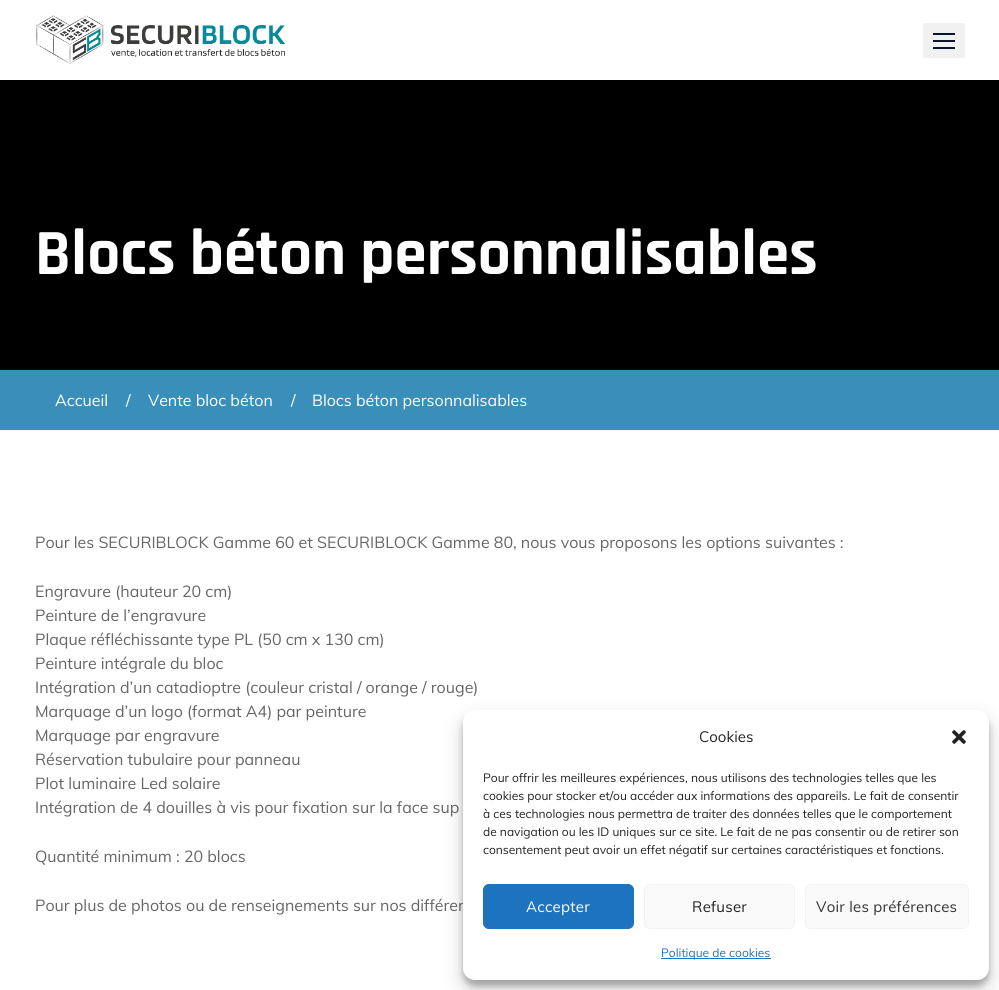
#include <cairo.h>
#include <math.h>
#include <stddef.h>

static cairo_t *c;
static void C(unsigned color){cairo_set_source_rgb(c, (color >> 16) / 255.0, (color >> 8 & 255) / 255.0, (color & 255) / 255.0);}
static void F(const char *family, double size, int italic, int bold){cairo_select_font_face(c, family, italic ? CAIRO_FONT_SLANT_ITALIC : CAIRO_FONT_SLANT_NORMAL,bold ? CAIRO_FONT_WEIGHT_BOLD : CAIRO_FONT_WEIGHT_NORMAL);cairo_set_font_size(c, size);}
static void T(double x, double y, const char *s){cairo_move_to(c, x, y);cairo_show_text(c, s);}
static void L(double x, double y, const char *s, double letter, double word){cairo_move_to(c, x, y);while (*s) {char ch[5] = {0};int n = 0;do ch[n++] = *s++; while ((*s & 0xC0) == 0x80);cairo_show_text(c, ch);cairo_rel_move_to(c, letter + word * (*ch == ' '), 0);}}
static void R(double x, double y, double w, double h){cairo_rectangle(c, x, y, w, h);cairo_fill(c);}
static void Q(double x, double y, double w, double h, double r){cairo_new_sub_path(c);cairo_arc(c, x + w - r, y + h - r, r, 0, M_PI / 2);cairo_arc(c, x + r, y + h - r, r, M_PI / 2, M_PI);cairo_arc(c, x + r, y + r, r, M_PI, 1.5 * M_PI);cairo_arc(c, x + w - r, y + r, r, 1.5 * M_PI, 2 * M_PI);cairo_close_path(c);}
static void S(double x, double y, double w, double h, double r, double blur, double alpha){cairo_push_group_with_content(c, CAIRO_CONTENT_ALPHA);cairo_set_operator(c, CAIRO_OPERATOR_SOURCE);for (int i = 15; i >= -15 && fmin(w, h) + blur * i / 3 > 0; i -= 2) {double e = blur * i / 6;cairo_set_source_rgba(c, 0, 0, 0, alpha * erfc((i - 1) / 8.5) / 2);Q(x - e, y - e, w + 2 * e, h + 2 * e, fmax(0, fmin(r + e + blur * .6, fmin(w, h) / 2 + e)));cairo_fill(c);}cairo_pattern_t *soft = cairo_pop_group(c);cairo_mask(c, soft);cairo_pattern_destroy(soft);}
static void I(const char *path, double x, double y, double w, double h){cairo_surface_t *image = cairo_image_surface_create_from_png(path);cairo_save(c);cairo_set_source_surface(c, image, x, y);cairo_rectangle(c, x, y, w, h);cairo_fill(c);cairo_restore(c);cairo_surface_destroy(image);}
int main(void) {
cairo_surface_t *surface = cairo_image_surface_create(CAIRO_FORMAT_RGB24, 999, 990);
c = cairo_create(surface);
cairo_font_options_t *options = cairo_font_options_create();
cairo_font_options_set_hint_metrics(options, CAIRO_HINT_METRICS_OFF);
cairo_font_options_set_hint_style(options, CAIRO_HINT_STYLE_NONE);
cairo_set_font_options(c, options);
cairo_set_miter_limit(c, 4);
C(0xffffff);
cairo_paint(c);
I("1.png",35,15,250,50);
C(0xf1f1f1);
R(923,23,42,35);
C(0x0a172a);
R(933,33,22,2);
R(933,40,22,2);
R(933,47,22,2);
C(0x000000);
R(0,80,999,290);
F("Rajdhani",65,0,1);
C(0xffffff);
T(35,274,"Blocs béton personnalisables");
C(0x3a8eba);
R(0,370,999,60);
F("Muli",16,0,0);
C(0xffffff);
T(55,406,"Accueil");
T(126,406,"/");
T(148,406,"Vente bloc béton");
T(291,406,"/");
T(312,406,"Blocs béton personnalisables");
C(0x666666);
T(35,548,"Pour les SECURIBLOCK Gamme 60 et SECURIBLOCK Gamme 80, nous vous proposons les options suivantes :");
T(35,597,"Engravure (hauteur 20 cm)");
T(35,621,"Peinture de l’engravure");
T(35,645,"Plaque réfléchissante type PL (50 cm x 130 cm)");
T(35,669,"Peinture intégrale du bloc");
T(35,693,"Intégration d’un catadioptre (couleur cristal / orange / rouge)");
T(35,717,"Marquage d’un logo (format A4) par peinture");
T(35,741,"Marquage par engravure");
T(35,765,"Réservation tubulaire pour panneau");
T(35,789,"Plot luminaire Led solaire");
T(35,813,"Intégration de 4 douilles à vis pour fixation sur la face sup");
T(35,862,"Quantité minimum : 20 blocs");
T(35,911,"Pour plus de photos ou de renseignements sur nos différen");
C(0x000000);
S(463,716,526,270,12,3,.23);
S(463,720,526,270,12,10,.19);
C(0xffffff);
Q(463,710,526,270,12);
cairo_fill(c);
F("Muli",15,0,0);
C(0x222222);
T(699,742,"Cookies");
I("2.png",952,730,14,14);
F("Muli",12,0,0);
T(483,782,"Pour offrir les meilleures expériences, nous utilisons des technologies telles que les");
T(483,800,"cookies pour stocker et/ou accéder aux informations des appareils. Le fait de consentir");
T(483,818,"à ces technologies nous permettra de traiter des données telles que le comportement");
T(483,836,"de navigation ou les ID uniques sur ce site. Le fait de ne pas consentir ou de retirer son");
T(483,854,"consentement peut avoir un effet négatif sur certaines caractéristiques et fonctions.");
C(0x1e73be);
Q(483.5,884.5,150,44,5.5);
cairo_fill_preserve(c);
cairo_set_line_width(c,1);
cairo_stroke(c);
F("Muli",15,0,0);
C(0xffffff);
L(526,912,"Accepter",.25,0);
C(0xf9f9f9);
Q(644.5,884.5,150,44,5.5);
cairo_fill_preserve(c);
C(0xf2f2f2);
cairo_stroke(c);
C(0x222222);
L(692,912,"Refuser",.25,0);
C(0xf9f9f9);
Q(805.5,884.5,163,44,5.5);
cairo_fill_preserve(c);
C(0xf2f2f2);
cairo_stroke(c);
C(0x333333);
L(816,912,"Voir les préférences",.25,0);
C(0x1e73be);
R(661,958,110,1);
F("Muli",12,0,0);
T(661,957,"Politique de cookies");
cairo_surface_write_to_png(surface, "o.png");
cairo_font_options_destroy(options);
cairo_destroy(c);
cairo_surface_destroy(surface);
return 0;
}
